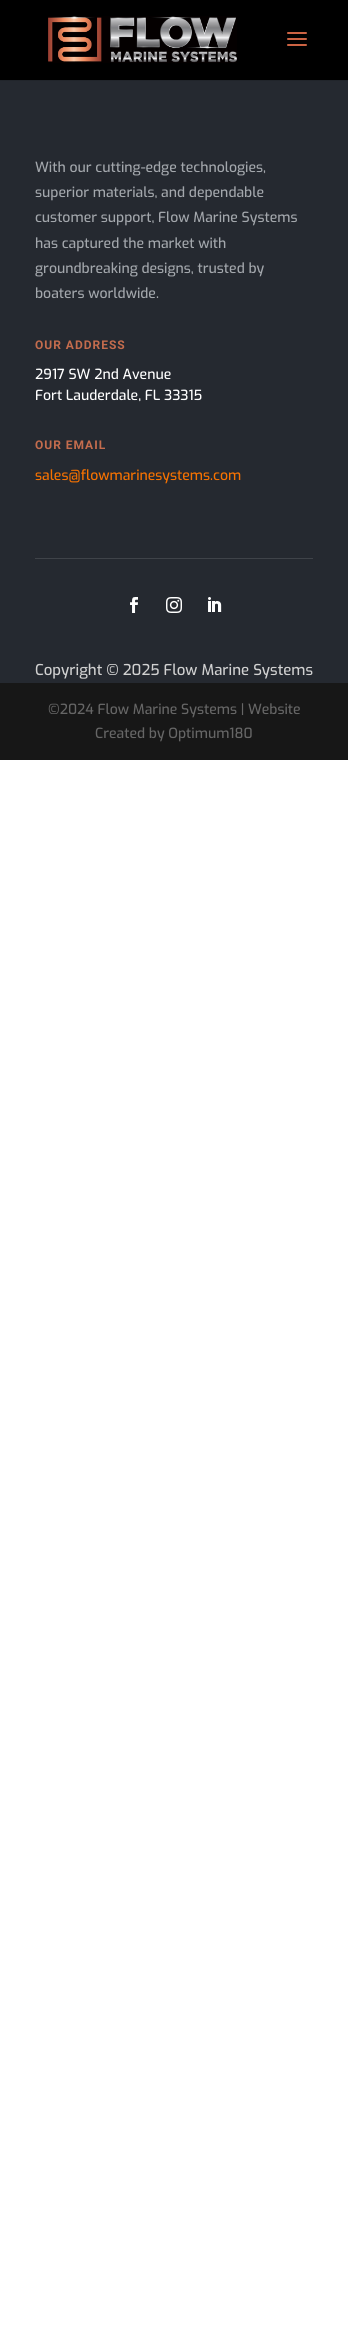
#include <cairo.h>
#include <math.h>
#include <stddef.h>

static cairo_t *c;
static void C(unsigned color){cairo_set_source_rgb(c, (color >> 16) / 255.0, (color >> 8 & 255) / 255.0, (color & 255) / 255.0);}
static void F(const char *family, double size, int italic, int bold){cairo_select_font_face(c, family, italic ? CAIRO_FONT_SLANT_ITALIC : CAIRO_FONT_SLANT_NORMAL,bold ? CAIRO_FONT_WEIGHT_BOLD : CAIRO_FONT_WEIGHT_NORMAL);cairo_set_font_size(c, size);}
static void T(double x, double y, const char *s){cairo_move_to(c, x, y);cairo_show_text(c, s);}
static void L(double x, double y, const char *s, double letter, double word){cairo_move_to(c, x, y);while (*s) {char ch[5] = {0};int n = 0;do ch[n++] = *s++; while ((*s & 0xC0) == 0x80);cairo_show_text(c, ch);cairo_rel_move_to(c, letter + word * (*ch == ' '), 0);}}
static void R(double x, double y, double w, double h){cairo_rectangle(c, x, y, w, h);cairo_fill(c);}
static void I(const char *path, double x, double y, double w, double h){cairo_surface_t *image = cairo_image_surface_create_from_png(path);cairo_save(c);cairo_set_source_surface(c, image, x, y);cairo_rectangle(c, x, y, w, h);cairo_fill(c);cairo_restore(c);cairo_surface_destroy(image);}
int main(void) {
cairo_surface_t *surface = cairo_image_surface_create(CAIRO_FORMAT_RGB24, 348, 2337);
c = cairo_create(surface);
cairo_font_options_t *options = cairo_font_options_create();
cairo_font_options_set_hint_metrics(options, CAIRO_HINT_METRICS_OFF);
cairo_font_options_set_hint_style(options, CAIRO_HINT_STYLE_NONE);
cairo_set_font_options(c, options);
cairo_set_miter_limit(c, 4);
C(0xffffff);
cairo_paint(c);
C(0x21252b);
R(0,80,348,1);
C(0x000000);
R(0,0,348,80);
I("1.png",48,16,189,47);
I("2.png",287,32,20,14);
C(0x252930);
R(0,81,348,602);
F("Exo Medium",14,0,0);
C(0xa3a7ac);
T(35,172,"With our cutting-edge technologies,");
T(35,197,"superior materials, and dependable");
T(35,222,"customer support, Flow Marine Systems");
T(35,248,"has captured the market with");
T(35,273,"groundbreaking designs, trusted by");
T(35,298,"boaters worldwide.");
F("Roboto",12,0,1);
C(0xc46c4d);
L(35,349,"OUR ADDRESS",1,0);
F("Exo Medium",14,0,0);
C(0xffffff);
T(35,379,"2917 SW 2nd Avenue");
T(35,400,"Fort Lauderdale, FL 33315");
F("Roboto",12,0,1);
C(0xc46c4d);
L(35,449,"OUR EMAIL",1,0);
F("Exo Medium",14,0,0);
C(0xf87200);
T(35,480,"sales@flowmarinesystems.com");
C(0x3f4349);
R(35,558,278,1);
I("3.png",130,597,8,16);
I("4.png",166,597,16,16);
I("5.png",208,597,14,15);
F("Exo Medium",15,0,0);
C(0xd1d1d1);
T(35,675,"Copyright © 2025 Flow Marine Systems");
C(0x171717);
R(0,683,348,77);
F("Exo Medium",14,0,0);
C(0x666666);
T(48,714,"©2024 Flow Marine Systems | Website");
T(95,738,"Created by Optimum180");
cairo_surface_write_to_png(surface, "o.png");
cairo_font_options_destroy(options);
cairo_destroy(c);
cairo_surface_destroy(surface);
return 0;
}
